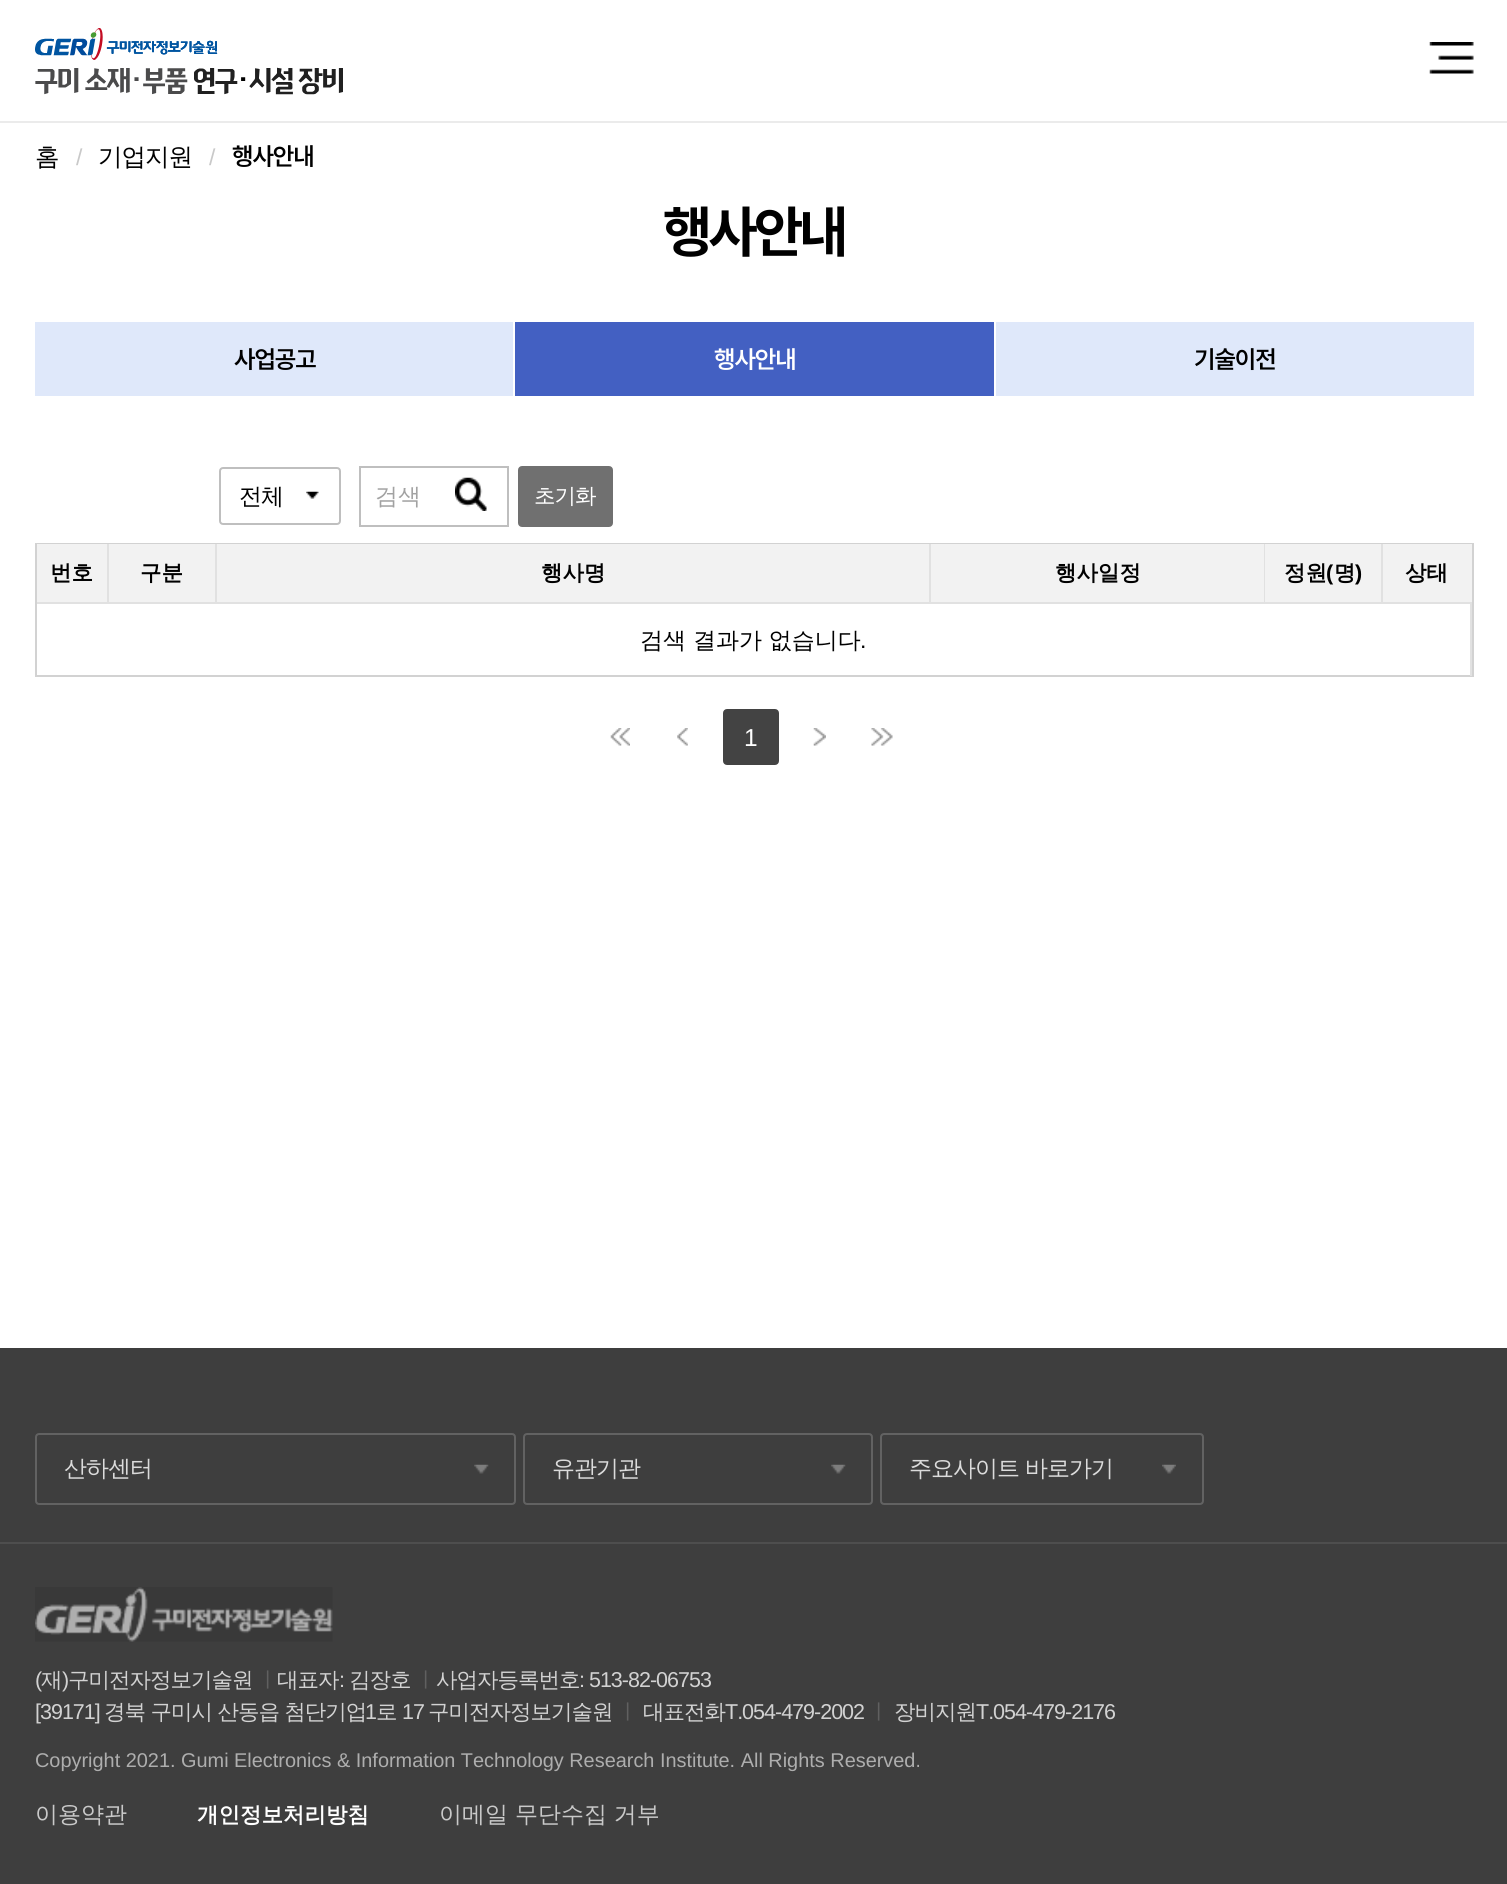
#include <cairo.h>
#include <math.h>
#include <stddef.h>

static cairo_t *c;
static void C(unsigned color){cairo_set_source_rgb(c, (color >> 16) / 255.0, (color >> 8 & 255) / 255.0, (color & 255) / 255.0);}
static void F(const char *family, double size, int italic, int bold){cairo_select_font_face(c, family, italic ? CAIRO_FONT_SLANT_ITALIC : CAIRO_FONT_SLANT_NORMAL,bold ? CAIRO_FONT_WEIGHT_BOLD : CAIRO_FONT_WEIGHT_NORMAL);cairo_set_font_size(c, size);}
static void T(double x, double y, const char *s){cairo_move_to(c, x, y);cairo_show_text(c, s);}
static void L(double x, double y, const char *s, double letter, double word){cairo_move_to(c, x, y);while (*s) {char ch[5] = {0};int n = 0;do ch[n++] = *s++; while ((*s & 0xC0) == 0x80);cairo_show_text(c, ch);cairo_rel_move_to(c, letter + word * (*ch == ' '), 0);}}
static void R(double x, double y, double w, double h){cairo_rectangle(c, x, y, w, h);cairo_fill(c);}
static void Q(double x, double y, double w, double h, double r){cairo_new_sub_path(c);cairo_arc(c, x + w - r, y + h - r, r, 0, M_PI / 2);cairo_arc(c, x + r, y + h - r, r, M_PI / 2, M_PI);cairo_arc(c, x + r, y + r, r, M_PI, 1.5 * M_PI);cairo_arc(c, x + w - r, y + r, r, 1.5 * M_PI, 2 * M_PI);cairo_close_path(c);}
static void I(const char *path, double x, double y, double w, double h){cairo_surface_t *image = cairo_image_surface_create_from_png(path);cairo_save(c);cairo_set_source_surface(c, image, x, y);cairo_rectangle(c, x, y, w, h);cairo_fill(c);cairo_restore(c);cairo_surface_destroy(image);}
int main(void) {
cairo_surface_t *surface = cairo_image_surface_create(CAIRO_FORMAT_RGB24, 1507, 1884);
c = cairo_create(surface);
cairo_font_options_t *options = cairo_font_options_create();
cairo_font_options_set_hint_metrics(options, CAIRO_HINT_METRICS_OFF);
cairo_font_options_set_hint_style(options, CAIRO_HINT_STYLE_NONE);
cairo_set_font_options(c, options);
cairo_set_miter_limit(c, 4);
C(0xffffff);
cairo_paint(c);
C(0xebebeb);
R(0,121,1507,2);
I("1.png",35,28,308,67);
I("2.png",1429,42,45,32);
F("WenQuanYi Zen Hei Medium",24.5,0,0);
C(0x000000);
L(35,165,"홈",-1,0);
F("Liberation Sans",23,0,0);
C(0xc9c9c9);
L(76,165,"/",-1,0);
F("WenQuanYi Zen Hei Medium",24.5,0,0);
C(0x000000);
L(98,165,"기업지원",-1,0);
F("Liberation Sans",23,0,0);
C(0xc9c9c9);
L(209,165,"/",-1,0);
F("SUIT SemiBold",24.5,0,0);
C(0x000000);
L(232,165,"행사안내",-1,0);
F("SUIT",56,0,1);
L(663,252,"행사안내",-3.5,0);
C(0xdfe8fa);
R(35,322,478,74);
F("SUIT SemiBold",24.5,0,0);
C(0x000000);
L(234,368,"사업공고",-1,0);
C(0x4360c2);
R(515,322,479,74);
C(0xffffff);
L(714,368,"행사안내",-1,0);
C(0xdfe8fa);
R(996,322,478,74);
C(0x000000);
L(1194,368,"기술이전",-1,0);
I("3.png",306,491,13,8);
Q(220,468,120,56,3);
C(0xbfbfbf);
cairo_stroke(c);
F("WenQuanYi Zen Hei Medium",23,0,0);
C(0x000000);
L(239,504,"전체",-1,0);
cairo_rectangle(c,360,467,148,59);
C(0xbfbfbf);
cairo_stroke(c);
C(0xa2a2a2);
T(375,504,"검색");
I("4.png",455,477,32,34);
C(0x707070);
Q(519,467,93,59,3);
cairo_fill_preserve(c);
cairo_stroke(c);
F("WenQuanYi Zen Hei Medium",21.5,0,0);
C(0xffffff);
L(534,503,"초기화",-1,0);
cairo_rectangle(c,36,544,1437,132);
C(0xd2d2d2);
cairo_stroke(c);
C(0xf2f2f2);
R(37,544,70,58);
C(0xe1e1e1);
R(107,544,2,60);
R(37,602,72,2);
F("WenQuanYi Zen Hei",21.5,0,1);
C(0x000000);
T(50,580,"번호");
C(0xf2f2f2);
R(109,544,106,58);
C(0xe1e1e1);
R(215,544,2,60);
R(109,602,108,2);
C(0x000000);
T(140,580,"구분");
C(0xf2f2f2);
R(217,544,712,58);
C(0xe1e1e1);
R(929,544,2,60);
R(217,602,714,2);
C(0x000000);
T(541,580,"행사명");
C(0xf2f2f2);
R(931,544,333,58);
C(0xe1e1e1);
R(1264,544,1,60);
R(931,602,334,2);
C(0x000000);
T(1055,580,"행사일정");
C(0xf2f2f2);
R(1265,544,116,58);
C(0xe1e1e1);
R(1381,544,2,60);
R(1265,602,207,2);
C(0x000000);
T(1284,580,"정원");
F("Liberation Sans",21.5,0,1);
T(1326,580,"(");
F("WenQuanYi Zen Hei",21.5,0,1);
T(1334,580,"명");
F("Liberation Sans",21.5,0,1);
T(1355,580,")");
C(0xf2f2f2);
R(1383,544,89,58);
F("WenQuanYi Zen Hei",21.5,0,1);
C(0x000000);
T(1405,580,"상태");
C(0xe1e1e1);
R(1470,604,2,72);
F("WenQuanYi Zen Hei Medium",23,0,0);
C(0x000000);
T(640,648,"검색 결과가 없습니다");
F("Liberation Sans",23,0,0);
T(860,648,".");
I("5.png",610,728,20,18);
I("6.png",677,728,11,18);
C(0x434343);
Q(724,710,54,54,3);
cairo_fill_preserve(c);
cairo_stroke(c);
F("Liberation Sans",24.5,0,0);
C(0xffffff);
T(744,746,"1");
I("7.png",813,728,13,18);
I("8.png",871,728,22,18);
C(0x3e3e3e);
R(0,1348,1507,536);
C(0x4e4e4e);
R(0,1542,1507,2);
I("9.png",474,1464,15,10);
Q(36,1434,479,70,3);
C(0x626262);
cairo_stroke(c);
F("WenQuanYi Zen Hei Medium",23,0,0);
C(0xdbdbdb);
L(64,1476,"산하센터",-1,0);
I("9.png",831,1464,15,10);
Q(524,1434,348,70,3);
C(0x626262);
cairo_stroke(c);
C(0xdbdbdb);
L(552,1476,"유관기관",-1,0);
I("10.png",1162,1464,14,10);
Q(881,1434,322,70,3);
C(0x626262);
cairo_stroke(c);
C(0xdbdbdb);
L(909,1476,"주요사이트 바로가기",-1,0);
I("11.png",35,1587,298,55);
F("Liberation Sans",21.5,0,0);
C(0xd2d2d2);
L(35,1687,"(",-1,0);
F("WenQuanYi Zen Hei Medium",21.5,0,0);
L(41,1687,"재",-1,0);
F("Liberation Sans",21.5,0,0);
L(62,1687,")",-1,0);
F("WenQuanYi Zen Hei Medium",21.5,0,0);
L(68,1687,"구미전자정보기술원",-1,0);
C(0x606060);
L(257,1687,"ㅣ",-1,0);
C(0xd2d2d2);
L(277,1687,"대표자",-1,0);
F("Liberation Sans",21.5,0,0);
L(339,1687,":",-1,0);
F("WenQuanYi Zen Hei Medium",21.5,0,0);
L(349,1687,"김장호",-1,0);
C(0x606060);
L(415,1687,"ㅣ",-1,0);
C(0xd2d2d2);
L(436,1687,"사업자등록번호",-1,0);
F("Liberation Sans",21.5,0,0);
L(579,1687,": 513-82-06753",-1,0);
L(35,1719,"[39171]",-1,0);
F("WenQuanYi Zen Hei Medium",21.5,0,0);
L(104,1719,"경북 구미시 산동읍 첨단기업",-1,0);
F("Liberation Sans",21.5,0,0);
L(365,1719,"1",-1,0);
F("WenQuanYi Zen Hei Medium",21.5,0,0);
L(376,1719,"로",-1,0);
F("Liberation Sans",21.5,0,0);
L(402,1719,"17",-1,0);
F("WenQuanYi Zen Hei Medium",21.5,0,0);
L(428,1719,"구미전자정보기술원",-1,0);
C(0x606060);
L(617,1719,"ㅣ",-1,0);
C(0xd2d2d2);
L(643,1719,"대표전화",-1,0);
F("Liberation Sans",21.5,0,0);
L(725,1719,"T.054-479-2002",-1,0);
F("WenQuanYi Zen Hei Medium",21.5,0,0);
C(0x606060);
L(868,1719,"ㅣ",-1,0);
C(0xd2d2d2);
L(894,1719,"장비지원",-1,0);
F("Liberation Sans",21.5,0,0);
L(976,1719,"T.054-479-2176",-1,0);
F("Liberation Sans",19.9,0,0);
C(0xaeaeae);
T(35,1767,"Copyright 2021. Gumi Electronics & Information Technology Research Institute. All Rights Reserved.");
F("WenQuanYi Zen Hei Medium",23,0,0);
C(0xc9c9c9);
T(35,1822,"이용약관");
F("WenQuanYi Zen Hei",21.5,0,1);
C(0xffffff);
T(197,1822,"개인정보처리방침");
F("WenQuanYi Zen Hei Medium",23,0,0);
C(0xc9c9c9);
T(439,1822,"이메일 무단수집 거부");
cairo_surface_write_to_png(surface, "o.png");
cairo_font_options_destroy(options);
cairo_destroy(c);
cairo_surface_destroy(surface);
return 0;
}
